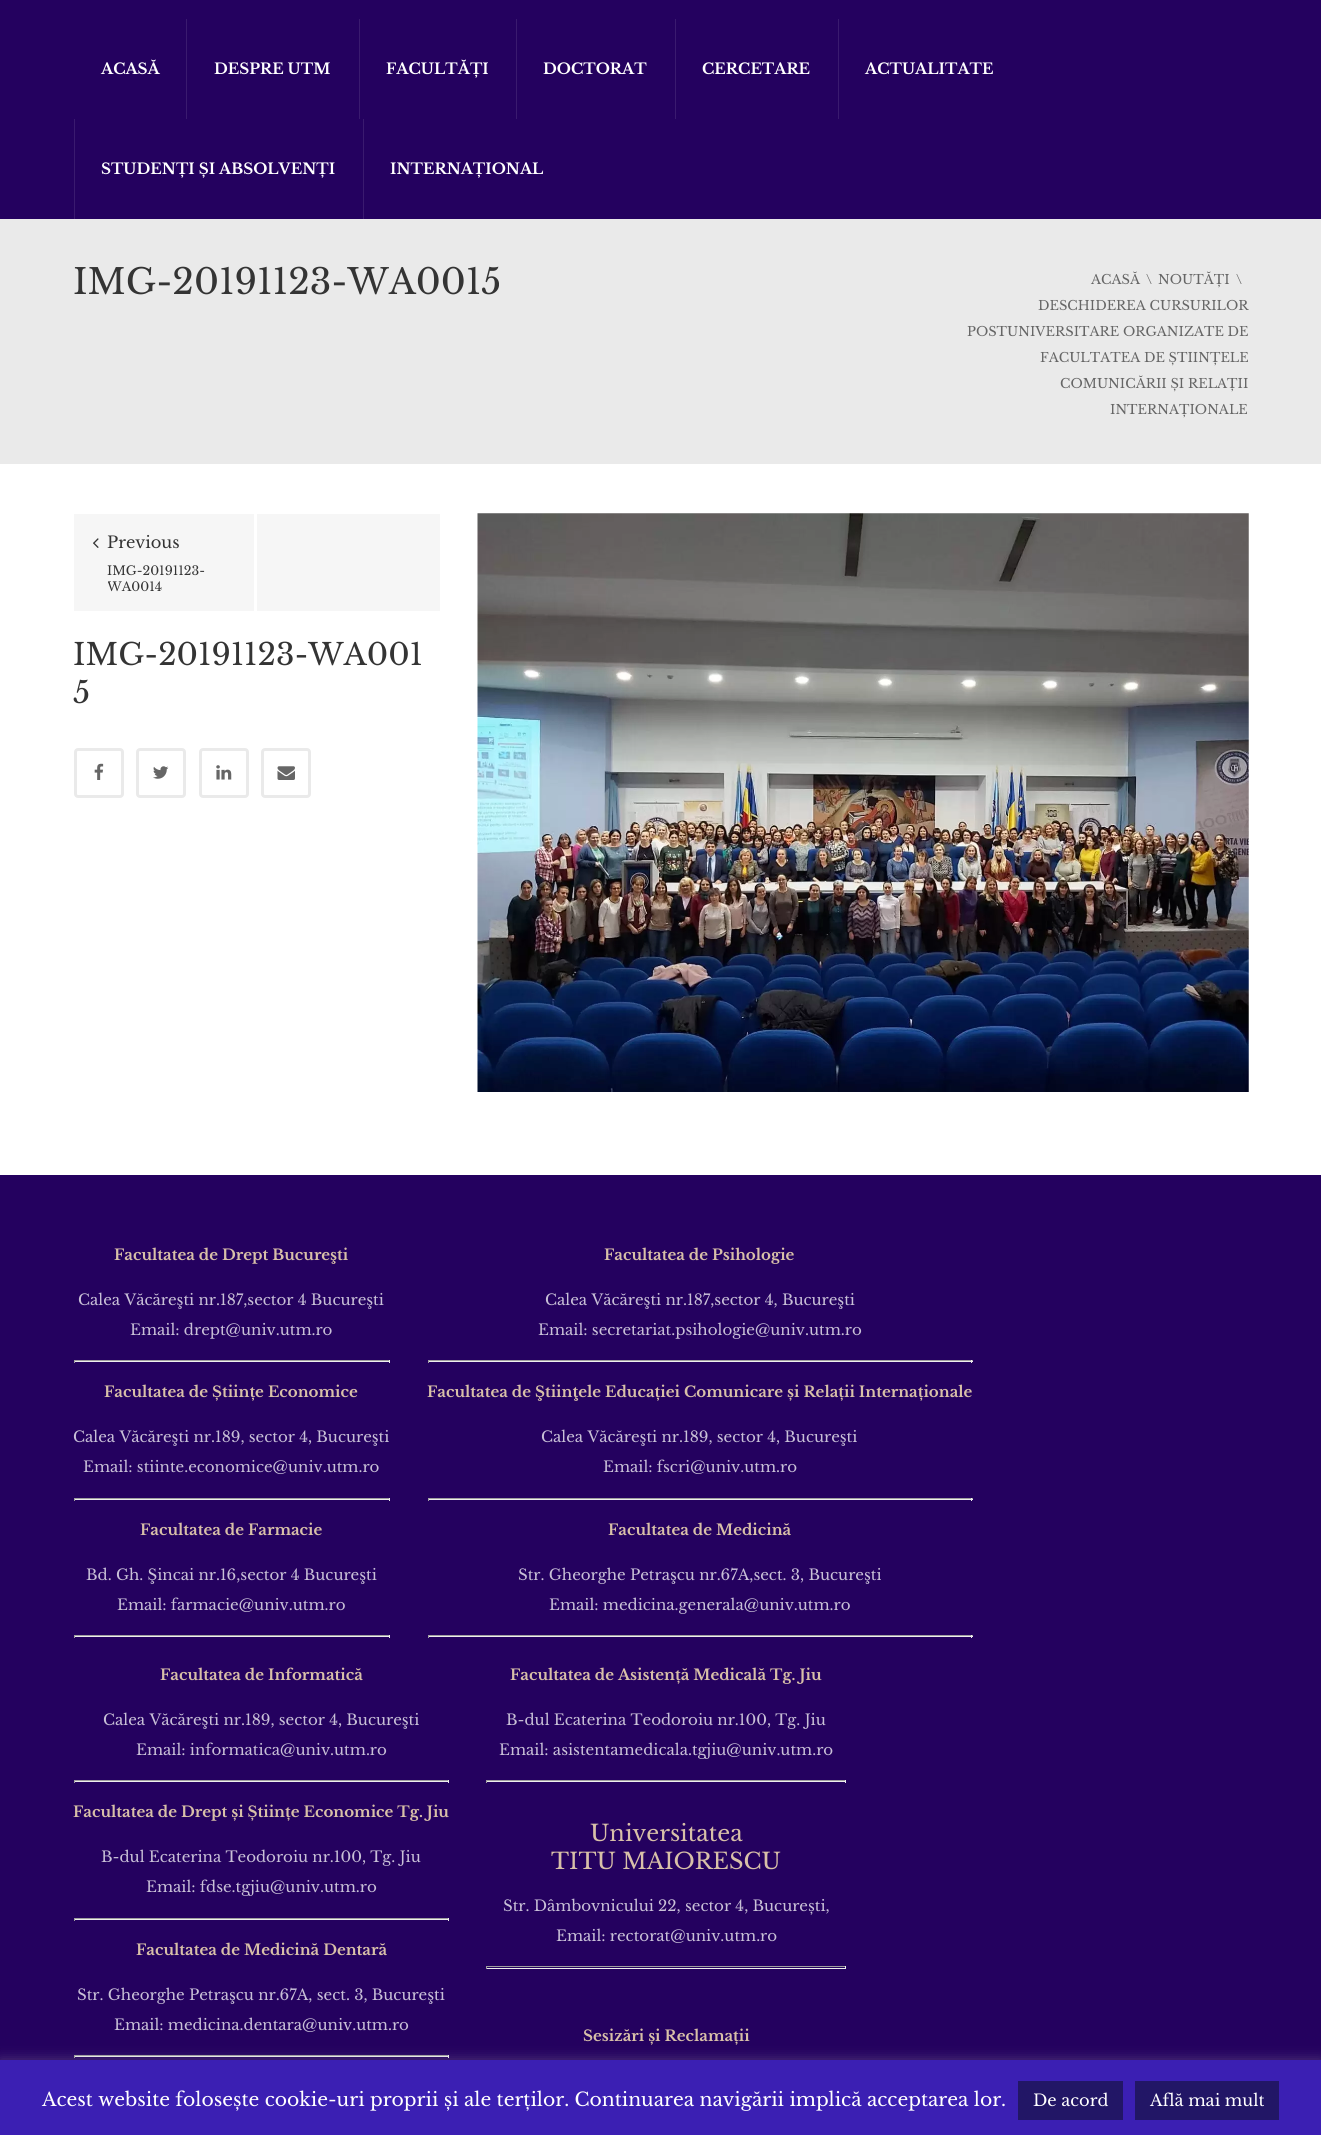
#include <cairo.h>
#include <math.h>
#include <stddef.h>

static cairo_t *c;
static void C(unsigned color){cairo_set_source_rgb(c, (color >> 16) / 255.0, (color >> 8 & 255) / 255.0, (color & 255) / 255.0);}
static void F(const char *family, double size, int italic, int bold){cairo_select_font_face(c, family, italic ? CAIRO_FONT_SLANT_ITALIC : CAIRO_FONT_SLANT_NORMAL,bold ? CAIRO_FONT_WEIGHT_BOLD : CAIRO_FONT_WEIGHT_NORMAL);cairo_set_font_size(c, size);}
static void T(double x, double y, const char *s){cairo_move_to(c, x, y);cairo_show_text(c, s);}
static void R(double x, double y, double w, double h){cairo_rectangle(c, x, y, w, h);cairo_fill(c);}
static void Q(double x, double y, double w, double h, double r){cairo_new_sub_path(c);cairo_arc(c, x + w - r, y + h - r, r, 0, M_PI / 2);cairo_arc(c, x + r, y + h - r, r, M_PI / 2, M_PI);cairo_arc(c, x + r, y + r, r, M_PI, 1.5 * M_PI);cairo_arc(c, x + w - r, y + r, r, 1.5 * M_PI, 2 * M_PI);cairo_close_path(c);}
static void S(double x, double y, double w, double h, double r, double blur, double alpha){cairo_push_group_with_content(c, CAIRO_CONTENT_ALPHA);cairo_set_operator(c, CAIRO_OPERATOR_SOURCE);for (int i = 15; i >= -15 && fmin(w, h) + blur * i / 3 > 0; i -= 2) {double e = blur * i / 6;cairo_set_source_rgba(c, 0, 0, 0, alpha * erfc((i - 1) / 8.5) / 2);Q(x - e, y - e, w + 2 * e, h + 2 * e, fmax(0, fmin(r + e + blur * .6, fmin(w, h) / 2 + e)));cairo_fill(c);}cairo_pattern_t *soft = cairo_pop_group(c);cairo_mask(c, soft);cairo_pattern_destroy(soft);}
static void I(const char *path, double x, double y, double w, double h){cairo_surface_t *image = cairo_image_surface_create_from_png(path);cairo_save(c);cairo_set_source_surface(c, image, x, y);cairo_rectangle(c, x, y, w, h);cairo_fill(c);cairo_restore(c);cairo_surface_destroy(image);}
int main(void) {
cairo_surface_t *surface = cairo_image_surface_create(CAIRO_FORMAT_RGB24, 1321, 2135);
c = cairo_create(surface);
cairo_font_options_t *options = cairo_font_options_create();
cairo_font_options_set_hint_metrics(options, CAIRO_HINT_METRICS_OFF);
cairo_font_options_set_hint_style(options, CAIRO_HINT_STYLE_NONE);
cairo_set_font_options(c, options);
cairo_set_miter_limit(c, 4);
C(0xffffff);
cairo_paint(c);
C(0x24015f);
R(0,0,1321,219);
F("Libre Baskerville",15,0,1);
C(0xffffff);
T(101,74,"ACASĂ");
C(0x3a1a6f);
R(186,19,1,100);
C(0xffffff);
T(214,74,"DESPRE UTM");
C(0x3a1a6f);
R(359,19,1,100);
C(0xffffff);
T(386,74,"FACULTĂȚI");
C(0x3a1a6f);
R(516,19,1,100);
C(0xffffff);
T(543,74,"DOCTORAT");
C(0x3a1a6f);
R(675,19,1,100);
C(0xffffff);
T(702,74,"CERCETARE");
C(0x3a1a6f);
R(838,19,1,100);
C(0xffffff);
T(865,74,"ACTUALITATE");
C(0x3a1a6f);
R(74,119,1,100);
C(0xffffff);
T(101,174,"STUDENȚI ȘI ABSOLVENȚI");
C(0x3a1a6f);
R(363,119,1,100);
C(0xffffff);
T(390,174,"INTERNAȚIONAL");
C(0xeaeaea);
R(0,219,1321,245);
F("Libre Baskerville",35,0,0);
C(0x343434);
T(73,294,"IMG-20191123-WA0015");
F("Libre Baskerville",13,0,0);
C(0x666666);
T(1091,284,"ACASĂ");
T(1146,284,"\\");
T(1158,284,"NOUTĂȚI");
T(1236,284,"\\");
T(1038,310,"DESCHIDEREA CURSURILOR");
T(967,336,"POSTUNIVERSITARE ORGANIZATE DE");
T(1040,362,"FACULTATEA DE ȘTIINȚELE");
T(1060,388,"COMUNICĂRII ȘI RELAȚII");
T(1110,414,"INTERNAȚIONALE");
C(0xf6f6f6);
R(74,514,366,97);
C(0xffffff);
R(254,514,3,97);
I("1.png",93,538,6,10);
F("Libre Baskerville",16.25,0,0);
C(0x343434);
T(107,548,"Previous");
F("Libre Baskerville",12.5,0,0);
T(107,575,"IMG-20191123-");
cairo_save(c);
cairo_rectangle(c,108,564,112,31);
cairo_clip(c);
T(107,591,"WA0014");
cairo_restore(c);
F("Libre Baskerville",30,0,0);
T(73,665,"IMG-20191123-WA001");
T(73,703,"5");
Q(75.5,749.5,47,47,2.5);
C(0xeaeaea);
cairo_set_line_width(c,3);
cairo_stroke(c);
I("2.png",94,763,10,17);
Q(137.5,749.5,47,47,2.5);
cairo_stroke(c);
I("3.png",153,766,16,13);
Q(200.5,749.5,47,47,2.5);
cairo_stroke(c);
I("4.png",216,765,16,15);
Q(262.5,749.5,47,47,2.5);
cairo_stroke(c);
I("5.png",277,766,18,14);
I("6.png",477,513,772,579);
C(0x24015f);
R(0,1175,1321,885);
F("Libre Baskerville",15,0,1);
C(0xd8c0a8);
T(114,1260,"Facultatea de Drept Bucureşti");
F("Libre Baskerville",15,0,0);
C(0xc8c0d7);
T(78,1305,"Calea Văcăreşti nr.187,sector 4 Bucureşti");
T(130,1335,"Email: drept@univ.utm.ro");
C(0x9f9f9f);
R(74,1360,316,1);
C(0xeeeeee);
R(389,1360,1,3);
R(74,1361,316,1);
C(0x9f9f9f);
R(74,1360,1,3);
F("Libre Baskerville",15,0,1);
C(0xd8c0a8);
T(104,1397,"Facultatea de Științe Economice");
F("Libre Baskerville",15,0,0);
C(0xc8c0d7);
T(73,1442,"Calea Văcăreşti nr.189, sector 4, Bucureşti");
T(83,1472,"Email: stiinte.economice@univ.utm.ro");
C(0x9f9f9f);
R(74,1498,316,1);
C(0xeeeeee);
R(389,1498,1,3);
R(74,1499,316,1);
C(0x9f9f9f);
R(74,1498,1,3);
F("Libre Baskerville",15,0,1);
C(0xd8c0a8);
T(140,1535,"Facultatea de Farmacie");
F("Libre Baskerville",15,0,0);
C(0xc8c0d7);
T(86,1580,"Bd. Gh. Şincai nr.16,sector 4 Bucureşti");
T(117,1610,"Email: farmacie@univ.utm.ro");
C(0x9f9f9f);
R(74,1635,316,1);
C(0xeeeeee);
R(389,1635,1,3);
R(74,1636,316,1);
C(0x9f9f9f);
R(74,1635,1,3);
F("Libre Baskerville",15,0,1);
C(0xd8c0a8);
T(604,1260,"Facultatea de Psihologie");
F("Libre Baskerville",15,0,0);
C(0xc8c0d7);
T(545,1305,"Calea Văcăreşti nr.187,sector 4, Bucureşti");
T(538,1335,"Email: secretariat.psihologie@univ.utm.ro");
C(0x9f9f9f);
R(428,1360,545,1);
C(0xeeeeee);
R(971,1360,1,3);
R(428,1361,545,1);
C(0x9f9f9f);
R(428,1360,1,3);
F("Libre Baskerville",15,0,1);
C(0xd8c0a8);
T(427,1397,"Facultatea de Ştiinţele Educației Comunicare și Relații Internaționale");
F("Libre Baskerville",15,0,0);
C(0xc8c0d7);
T(541,1442,"Calea Văcăreşti nr.189, sector 4, Bucureşti");
T(603,1472,"Email: fscri@univ.utm.ro");
C(0x9f9f9f);
R(428,1498,545,1);
C(0xeeeeee);
R(971,1498,1,3);
R(428,1499,545,1);
C(0x9f9f9f);
R(428,1498,1,3);
F("Libre Baskerville",15,0,1);
C(0xd8c0a8);
T(608,1535,"Facultatea de Medicină");
F("Libre Baskerville",15,0,0);
C(0xc8c0d7);
T(518,1580,"Str. Gheorghe Petraşcu nr.67A,sect. 3, Bucureşti");
T(549,1610,"Email: medicina.generala@univ.utm.ro");
C(0x9f9f9f);
R(428,1635,545,1);
C(0xeeeeee);
R(971,1635,1,3);
R(428,1636,545,1);
C(0x9f9f9f);
R(428,1635,1,3);
F("Libre Baskerville",15,0,1);
C(0xd8c0a8);
T(160,1680,"Facultatea de Informatică");
F("Libre Baskerville",15,0,0);
C(0xc8c0d7);
T(103,1725,"Calea Văcăreşti nr.189, sector 4, Bucureşti");
T(136,1755,"Email: informatica@univ.utm.ro");
C(0x9f9f9f);
R(74,1780,375,1);
C(0xeeeeee);
R(448,1780,1,3);
R(74,1781,375,1);
C(0x9f9f9f);
R(74,1780,1,3);
F("Libre Baskerville",15,0,1);
C(0xd8c0a8);
T(73,1817,"Facultatea de Drept și Științe Economice Tg. Jiu");
F("Libre Baskerville",15,0,0);
C(0xc8c0d7);
T(101,1862,"B-dul Ecaterina Teodoroiu nr.100, Tg. Jiu");
T(146,1892,"Email: fdse.tgjiu@univ.utm.ro");
C(0x9f9f9f);
R(74,1918,375,1);
C(0xeeeeee);
R(448,1918,1,3);
R(74,1919,375,1);
C(0x9f9f9f);
R(74,1918,1,3);
F("Libre Baskerville",15,0,1);
C(0xd8c0a8);
T(136,1955,"Facultatea de Medicină Dentară");
F("Libre Baskerville",15,0,0);
C(0xc8c0d7);
T(77,2000,"Str. Gheorghe Petraşcu nr.67A, sect. 3, Bucureşti");
T(114,2030,"Email: medicina.dentara@univ.utm.ro");
C(0x9f9f9f);
R(74,2055,375,1);
C(0xeeeeee);
R(448,2055,1,3);
R(74,2056,375,1);
C(0x9f9f9f);
R(74,2055,1,3);
F("Libre Baskerville",15,0,1);
C(0xd8c0a8);
T(510,1680,"Facultatea de Asistență Medicală Tg. Jiu");
F("Libre Baskerville",15,0,0);
C(0xc8c0d7);
T(506,1725,"B-dul Ecaterina Teodoroiu nr.100, Tg. Jiu");
T(499,1755,"Email: asistentamedicala.tgjiu@univ.utm.ro");
C(0x9f9f9f);
R(486,1780,360,1);
C(0xeeeeee);
R(845,1780,1,3);
R(486,1781,360,1);
C(0x9f9f9f);
R(486,1780,1,3);
F("Libre Baskerville",22.5,0,0);
C(0xd8c0a8);
T(590,1841,"Universitatea");
T(551,1869,"TITU MAIORESCU");
F("Libre Baskerville",15,0,0);
C(0xc8c0d7);
T(503,1911,"Str. Dâmbovnicului 22, sector 4, București,");
T(556,1941,"Email: rectorat@univ.utm.ro");
C(0x9f9f9f);
R(486,1966,360,1);
C(0xeeeeee);
R(845,1966,1,3);
R(486,1968,360,1);
C(0x9f9f9f);
R(486,1966,1,3);
F("Libre Baskerville",15,0,1);
C(0xd8c0a8);
T(583,2041,"Sesizări și Reclamații");
C(0xacabab);
S(0,2059,1321,75,0,6,.3);
C(0x3b1fb3);
R(0,2060,1321,75);
F("Libre Baskerville",18.75,0,0);
C(0xffffff);
T(42,2106,"Acest website folosește cookie-uri proprii și ale terților. Continuarea navigării implică acceptarea lor.");
C(0x221666);
R(1018,2081,105,39);
F("Libre Baskerville",16.25,0,0);
C(0xffffff);
T(1033,2106,"De acord");
C(0x221666);
R(1135,2081,144,39);
C(0xffffff);
T(1150,2106,"Află mai mult");
cairo_surface_write_to_png(surface, "o.png");
cairo_font_options_destroy(options);
cairo_destroy(c);
cairo_surface_destroy(surface);
return 0;
}
